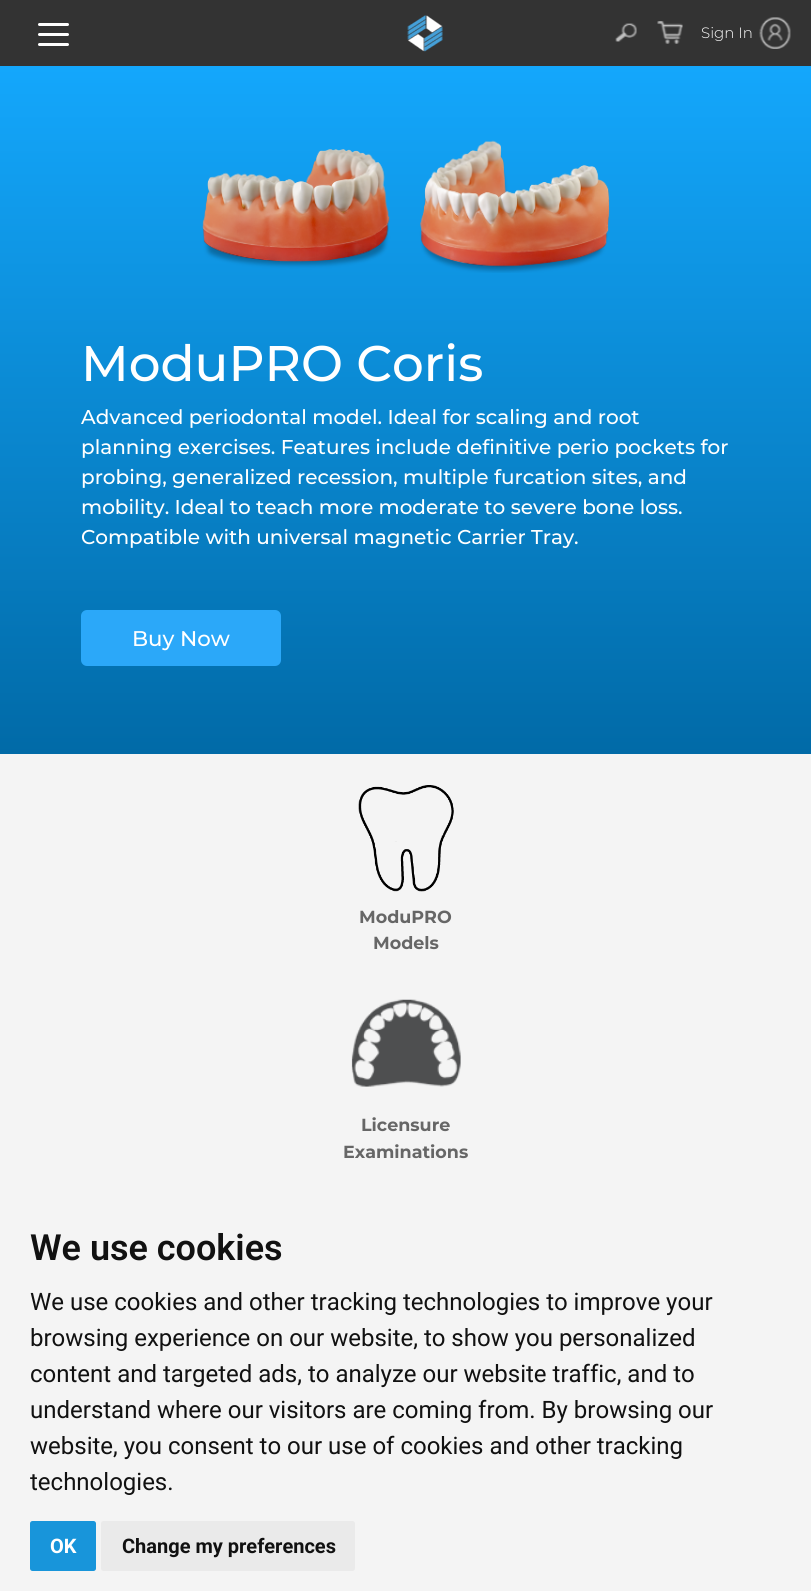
#include <cairo.h>
#include <math.h>
#include <stddef.h>

static cairo_t *c;
static void C(unsigned color){cairo_set_source_rgb(c, (color >> 16) / 255.0, (color >> 8 & 255) / 255.0, (color & 255) / 255.0);}
static void F(const char *family, double size, int italic, int bold){cairo_select_font_face(c, family, italic ? CAIRO_FONT_SLANT_ITALIC : CAIRO_FONT_SLANT_NORMAL,bold ? CAIRO_FONT_WEIGHT_BOLD : CAIRO_FONT_WEIGHT_NORMAL);cairo_set_font_size(c, size);}
static void T(double x, double y, const char *s){cairo_move_to(c, x, y);cairo_show_text(c, s);}
static void R(double x, double y, double w, double h){cairo_rectangle(c, x, y, w, h);cairo_fill(c);}
static void Q(double x, double y, double w, double h, double r){cairo_new_sub_path(c);cairo_arc(c, x + w - r, y + h - r, r, 0, M_PI / 2);cairo_arc(c, x + r, y + h - r, r, M_PI / 2, M_PI);cairo_arc(c, x + r, y + r, r, M_PI, 1.5 * M_PI);cairo_arc(c, x + w - r, y + r, r, 1.5 * M_PI, 2 * M_PI);cairo_close_path(c);}
static void I(const char *path, double x, double y, double w, double h){cairo_surface_t *image = cairo_image_surface_create_from_png(path);cairo_save(c);cairo_set_source_surface(c, image, x, y);cairo_rectangle(c, x, y, w, h);cairo_fill(c);cairo_restore(c);cairo_surface_destroy(image);}
int main(void) {
cairo_surface_t *surface = cairo_image_surface_create(CAIRO_FORMAT_RGB24, 811, 1591);
c = cairo_create(surface);
cairo_font_options_t *options = cairo_font_options_create();
cairo_font_options_set_hint_metrics(options, CAIRO_HINT_METRICS_OFF);
cairo_font_options_set_hint_style(options, CAIRO_HINT_STYLE_NONE);
cairo_set_font_options(c, options);
cairo_set_miter_limit(c, 4);
cairo_pattern_t *gradient;
C(0xf4f4f4);
cairo_paint(c);
C(0x333333);
R(0,0,811,66);
C(0xffffff);
Q(38,23,31,3,1.5);
cairo_fill(c);
Q(38,33,31,3,1.5);
cairo_fill(c);
Q(38,43,31,3,1.5);
cairo_fill(c);
I("1.png",407,15,36,37);
I("2.png",615,23,22,19);
I("3.png",657,21,26,23);
F("Montserrat Light",15,0,0);
T(701,38,"Sign In");
I("4.png",759,17,32,32);
gradient = cairo_pattern_create_linear(406,66,406,754);
cairo_pattern_add_color_stop_rgba(gradient,0,0.078,0.655,0.988,1);
cairo_pattern_add_color_stop_rgba(gradient,1,0.004,0.416,0.655,1);
cairo_set_source(c,gradient);
cairo_pattern_destroy(gradient);
R(0,66,811,688);
I("5.png",202,140,408,133);
F("Montserrat Medium",50,0,0);
C(0xffffff);
T(81,381,"ModuPRO Coris");
F("Montserrat Medium",20,0,0);
T(81,424,"Advanced periodontal model. Ideal for scaling and root");
T(81,454,"planning exercises. Features include definitive perio pockets for");
T(81,484,"probing, generalized recession, multiple furcation sites, and");
T(81,514,"mobility. Ideal to teach more moderate to severe bone loss.");
T(81,544,"Compatible with universal magnetic Carrier Tray.");
C(0x2ba8f9);
Q(81,610,200,56,6);
cairo_fill(c);
F("Montserrat Medium",21.25,0,0);
C(0xffffff);
T(132,646,"Buy Now");
I("6.png",358,785,96,107);
F("Montserrat",17.5,0,1);
C(0x666666);
T(359,923,"ModuPRO");
T(373,949,"Models");
I("7.png",351,999,110,88);
T(361,1131,"Licensure");
T(343,1158,"Examinations");
F("Roboto SemiBold",36,0,0);
C(0x111111);
T(30,1260,"We use cookies");
F("Roboto",24,0,0);
T(30,1310,"We use cookies and other tracking technologies to improve your");
T(30,1346,"browsing experience on our website, to show you personalized");
T(30,1382,"content and targeted ads, to analyze our website traffic, and to");
T(30,1418,"understand where our visitors are coming from. By browsing our");
T(30,1454,"website, you consent to our use of cookies and other tracking");
T(30,1490,"technologies.");
C(0x1895da);
Q(30,1521,66,50,2.5);
cairo_fill(c);
F("Roboto",20,0,1);
C(0xffffff);
T(50,1553,"OK");
C(0xeaeaea);
Q(101,1521,254,50,2.5);
cairo_fill(c);
C(0x111111);
T(122,1553,"Change my preferences");
cairo_surface_write_to_png(surface, "o.png");
cairo_font_options_destroy(options);
cairo_destroy(c);
cairo_surface_destroy(surface);
return 0;
}
